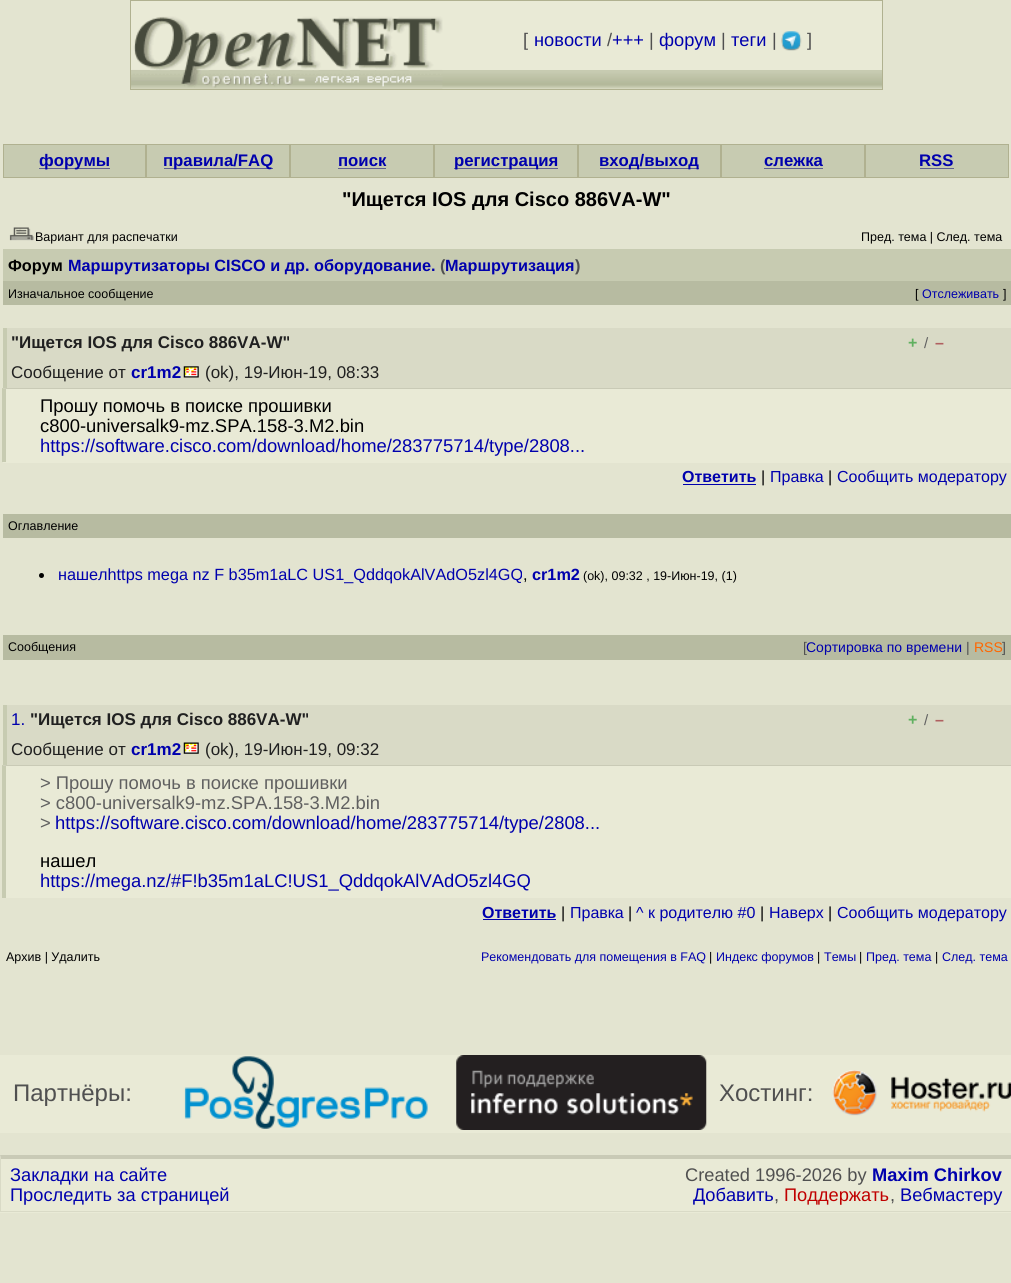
#include <cairo.h>
#include <math.h>
#include <stddef.h>

static cairo_t *c;
static void C(unsigned color){cairo_set_source_rgb(c, (color >> 16) / 255.0, (color >> 8 & 255) / 255.0, (color & 255) / 255.0);}
static void F(const char *family, double size, int italic, int bold){cairo_select_font_face(c, family, italic ? CAIRO_FONT_SLANT_ITALIC : CAIRO_FONT_SLANT_NORMAL,bold ? CAIRO_FONT_WEIGHT_BOLD : CAIRO_FONT_WEIGHT_NORMAL);cairo_set_font_size(c, size);}
static void T(double x, double y, const char *s){cairo_move_to(c, x, y);cairo_show_text(c, s);}
static void R(double x, double y, double w, double h){cairo_rectangle(c, x, y, w, h);cairo_fill(c);}
static void I(const char *path, double x, double y, double w, double h){cairo_surface_t *image = cairo_image_surface_create_from_png(path);cairo_save(c);cairo_set_source_surface(c, image, x, y);cairo_rectangle(c, x, y, w, h);cairo_fill(c);cairo_restore(c);cairo_surface_destroy(image);}
int main(void) {
cairo_surface_t *surface = cairo_image_surface_create(CAIRO_FORMAT_RGB24, 1011, 1283);
c = cairo_create(surface);
cairo_font_options_t *options = cairo_font_options_create();
cairo_font_options_set_hint_metrics(options, CAIRO_HINT_METRICS_OFF);
cairo_font_options_set_hint_style(options, CAIRO_HINT_STYLE_NONE);
cairo_set_font_options(c, options);
cairo_set_miter_limit(c, 4);
C(0xe3e4d0);
cairo_paint(c);
C(0xe9ead6);
R(131,1,751,88);
I("1.png",131,70,751,19);
cairo_rectangle(c,130.5,.5,752,89);
C(0xb0b190);
cairo_set_line_width(c,1);
cairo_stroke(c);
I("2.png",131,16,312,73);
F("Liberation Sans",18.25,0,0);
C(0x505050);
T(523,46,"[");
C(0x0000ad);
T(534,46,"новости");
C(0x505050);
T(607,46,"/");
C(0x0000ad);
T(612,46,"+++");
C(0x505050);
T(649,46,"|");
C(0x0000ad);
T(659,46,"форум");
C(0x505050);
T(721,46,"|");
C(0x0000ad);
T(731,46,"теги");
C(0x505050);
T(772,46,"|");
I("3.png",781,31,21,20);
T(807,46,"]");
C(0xc7cbb1);
cairo_rectangle(c,3.5,144.5,142,33);
cairo_fill_preserve(c);
C(0xb0b190);
cairo_stroke(c);
C(0x606090);
R(39,168,71,1);
F("Liberation Sans",16.75,0,1);
C(0x0000ad);
T(39,166,"форумы");
C(0xc7cbb1);
cairo_rectangle(c,146.5,144.5,143,33);
cairo_fill_preserve(c);
C(0xb0b190);
cairo_stroke(c);
C(0x606090);
R(164,168,109,1);
C(0x0000ad);
T(163,166,"правила/FAQ");
C(0xc7cbb1);
cairo_rectangle(c,290.5,144.5,143,33);
cairo_fill_preserve(c);
C(0xb0b190);
cairo_stroke(c);
C(0x0000ad);
T(338,166,"поиск");
C(0x606090);
R(338,168,48,1);
C(0xc7cbb1);
cairo_rectangle(c,434.5,144.5,143,33);
cairo_fill_preserve(c);
C(0xb0b190);
cairo_stroke(c);
C(0x606090);
R(454,168,104,1);
C(0x0000ad);
T(454,166,"регистрация");
C(0xc7cbb1);
cairo_rectangle(c,578.5,144.5,142,33);
cairo_fill_preserve(c);
C(0xb0b190);
cairo_stroke(c);
C(0x606090);
R(600,168,99,1);
C(0x0000ad);
T(599,166,"вход/выход");
C(0xc7cbb1);
cairo_rectangle(c,721.5,144.5,143,33);
cairo_fill_preserve(c);
C(0xb0b190);
cairo_stroke(c);
C(0x0000ad);
T(764,166,"слежка");
C(0x606090);
R(764,168,59,1);
C(0xc7cbb1);
cairo_rectangle(c,865.5,144.5,143,33);
cairo_fill_preserve(c);
C(0xb0b190);
cairo_stroke(c);
C(0x0000ad);
T(919,166,"RSS");
C(0x606090);
R(920,168,34,1);
F("Liberation Sans",20,0,1);
C(0x000000);
T(342,206,"\"Ищется IOS для Cisco 886VA-W\"");
I("4.png",9,227,25,14);
F("Liberation Sans",12.5,0,0);
T(35,241,"Вариант для распечатки");
T(861,241,"Пред. тема | След. тема");
C(0xc7cbb1);
R(3,249,1008,32);
F("Liberation Sans",16.25,0,1);
C(0x000000);
T(8,271,"Форум");
C(0x0000ad);
T(68,271,"Маршрутизаторы CISCO и др. оборудование.");
C(0x505050);
T(440,271,"(");
C(0x0000ad);
T(445,271,"Маршрутизация");
C(0x505050);
T(575,271,")");
C(0xb7bba1);
R(3,281,1008,24);
F("Liberation Sans",12.5,0,0);
C(0x000000);
T(8,298,"Изначальное сообщение");
T(915,298,"[");
C(0x0000ad);
T(922,298,"Отслеживать");
C(0x000000);
T(1003,298,"]");
C(0xd9dac6);
R(7,328,944,60);
C(0xc7cbb1);
R(3,328,4,60);
F("Liberation Sans",17,0,1);
C(0x202020);
T(11,348,"\"Ищется IOS для Cisco 886VA-W\"");
F("Liberation Sans",16,0,1);
C(0x60b060);
T(908,348,"+");
F("Liberation Sans",15,0,0);
C(0x606060);
T(924,348,"/");
F("Liberation Sans",16,0,1);
C(0xb06060);
T(935,348,"–");
C(0xd9dac6);
R(951,328,60,60);
F("Liberation Sans",17,0,0);
C(0x202020);
T(11,378,"Сообщение от");
F("Liberation Sans",17,0,1);
C(0x0000ad);
T(131,378,"cr1m2");
I("5.png",183,366,16,12);
F("Liberation Sans",17,0,0);
C(0x202020);
T(205,378,"(ok), 19-Июн-19, 08:33");
C(0xe9ead6);
R(3,388,1008,75);
C(0xc9cab6);
cairo_new_path(c);
cairo_move_to(c,2,388);
cairo_line_to(c,1011,388);
cairo_line_to(c,1011,389);
cairo_line_to(c,6,389);
cairo_close_path(c);
cairo_fill(c);
C(0xc7cbb1);
cairo_new_path(c);
cairo_move_to(c,2,462);
cairo_line_to(c,2,388);
cairo_line_to(c,6,389);
cairo_line_to(c,6,462);
cairo_close_path(c);
cairo_fill(c);
F("Liberation Sans",18.4,0,0);
C(0x000000);
T(40,412,"Прошу помочь в поиске прошивки");
T(40,432,"c800-universalk9-mz.SPA.158-3.M2.bin");
C(0x0000ad);
T(40,452,"https://software.cisco.com/download/home/283775714/type/2808...");
F("Liberation Sans",16,0,1);
T(682,482,"Ответить");
R(683,484,73,1);
F("Liberation Sans",16,0,0);
C(0x000000);
T(761,482,"|");
C(0x0000ad);
T(770,482,"Правка");
C(0x000000);
T(828,482,"|");
C(0x0000ad);
T(837,482,"Cообщить модератору");
C(0xb7bba1);
R(3,514,1008,24);
F("Liberation Sans",12.5,0,0);
C(0x000000);
T(8,530,"Оглавление");
cairo_new_path(c);
cairo_arc(c,41.5,575.5,2.5,0,2 * M_PI);
cairo_fill(c);
F("Liberation Sans",16.25,0,0);
C(0x0000ad);
T(58,580,"нашелhttps mega nz F b35m1aLC US1_QddqokAlVAdO5zl4GQ");
F("Liberation Sans",16.25,0,1);
T(532,580,"cr1m2");
F("Liberation Sans",12.5,0,0);
C(0x000000);
T(583,580,"(ok), 09:32 , 19-Июн-19, (1)");
F("Liberation Sans",16.25,0,0);
T(523,580,",");
C(0xb7bba1);
R(3,635,1008,25);
F("Liberation Sans",12.5,0,0);
C(0x000000);
T(8,651,"Сообщения");
F("Liberation Sans",14,0,0);
C(0x505050);
T(803,652,"[");
C(0x0000ad);
T(806,652,"Сортировка по времени");
C(0x505050);
T(966,652,"|");
C(0xff6600);
T(974,652,"RSS");
C(0x505050);
T(1002,652,"]");
C(0xd9dac6);
R(7,705,944,60);
C(0xc7cbb1);
R(3,705,4,60);
F("Liberation Sans",17,0,0);
C(0x0000ad);
T(11,725,"1.");
F("Liberation Sans",17,0,1);
C(0x202020);
T(30,725,"\"Ищется IOS для Cisco 886VA-W\"");
F("Liberation Sans",16,0,1);
C(0x60b060);
T(908,725,"+");
F("Liberation Sans",15,0,0);
C(0x606060);
T(924,725,"/");
F("Liberation Sans",16,0,1);
C(0xb06060);
T(935,725,"–");
C(0xd9dac6);
R(951,705,60,60);
F("Liberation Sans",17,0,0);
C(0x202020);
T(11,755,"Сообщение от");
F("Liberation Sans",17,0,1);
C(0x0000ad);
T(131,755,"cr1m2");
I("6.png",183,742,16,12);
F("Liberation Sans",17,0,0);
C(0x202020);
T(205,755,"(ok), 19-Июн-19, 09:32");
C(0xe9ead6);
R(3,765,1008,133);
C(0xc9cab6);
cairo_new_path(c);
cairo_move_to(c,2,765);
cairo_line_to(c,1011,765);
cairo_line_to(c,1011,766);
cairo_line_to(c,6,766);
cairo_close_path(c);
cairo_fill(c);
C(0xc7cbb1);
cairo_new_path(c);
cairo_move_to(c,2,898);
cairo_line_to(c,2,765);
cairo_line_to(c,6,766);
cairo_line_to(c,6,898);
cairo_close_path(c);
cairo_fill(c);
F("Liberation Sans",18.4,0,0);
C(0x606060);
T(40,789,"> Прошу помочь в поиске прошивки");
T(40,809,"> c800-universalk9-mz.SPA.158-3.M2.bin");
T(40,829,">");
C(0x0000ad);
T(55,829,"https://software.cisco.com/download/home/283775714/type/2808...");
C(0x000000);
T(40,867,"нашел");
C(0x0000ad);
T(40,887,"https://mega.nz/#F!b35m1aLC!US1_QddqokAlVAdO5zl4GQ");
F("Liberation Sans",16,0,1);
T(482,918,"Ответить");
R(483,919,73,1);
F("Liberation Sans",16,0,0);
C(0x000000);
T(561,918,"|");
C(0x0000ad);
T(570,918,"Правка");
C(0x000000);
T(628,918,"|");
C(0x0000ad);
T(636,918,"^ к родителю #0");
C(0x000000);
T(760,918,"|");
C(0x0000ad);
T(769,918,"Наверх");
C(0x000000);
T(828,918,"|");
C(0x0000ad);
T(837,918,"Cообщить модератору");
F("Liberation Sans",12.5,0,0);
C(0x000000);
T(6,961,"Архив | Удалить");
C(0x0000ad);
T(481,961,"Рекомендовать для помещения в FAQ");
C(0x000000);
T(709,961,"|");
C(0x0000ad);
T(716,961,"Индекс форумов");
C(0x000000);
T(817,961,"|");
C(0x0000ad);
T(824,961,"Темы");
C(0x000000);
T(859,961,"|");
C(0x0000ad);
T(866,961,"Пред. тема");
C(0x000000);
T(935,961,"|");
C(0x0000ad);
T(942,961,"След. тема");
C(0xe9ead6);
R(0,1055,1011,78);
F("Liberation Sans",24,0,0);
C(0x505050);
T(13,1101,"Партнёры:");
I("7.png",184,1056,244,73);
I("8.png",456,1055,251,75);
T(719,1101,"Хостинг:");
I("9.png",832,1070,179,46);
C(0xe9ead6);
R(0,1155,1011,58);
C(0xc9cab6);
cairo_new_path(c);
cairo_move_to(c,0,1155);
cairo_line_to(c,1011,1155);
cairo_line_to(c,1011,1159);
cairo_line_to(c,1,1159);
cairo_close_path(c);
cairo_fill(c);
C(0xd9dac6);
R(0,1211,1011,1);
cairo_new_path(c);
cairo_move_to(c,0,1212);
cairo_line_to(c,0,1155);
cairo_line_to(c,1,1159);
cairo_line_to(c,1,1211);
cairo_close_path(c);
cairo_fill(c);
F("Liberation Sans",18.25,0,0);
C(0x0000ad);
T(10,1181,"Закладки на сайте");
T(10,1201,"Проследить за страницей");
C(0x505050);
T(685,1181,"Created 1996-2026 by");
F("Liberation Sans",18.25,0,1);
C(0x0000ad);
T(872,1181,"Maxim Chirkov");
F("Liberation Sans",18.25,0,0);
T(693,1201,"Добавить");
C(0x505050);
T(774,1201,",");
C(0xc00000);
T(784,1201,"Поддержать");
C(0x505050);
T(890,1201,",");
C(0x0000ad);
T(900,1201,"Вебмастеру");
cairo_surface_write_to_png(surface, "o.png");
cairo_font_options_destroy(options);
cairo_destroy(c);
cairo_surface_destroy(surface);
return 0;
}
